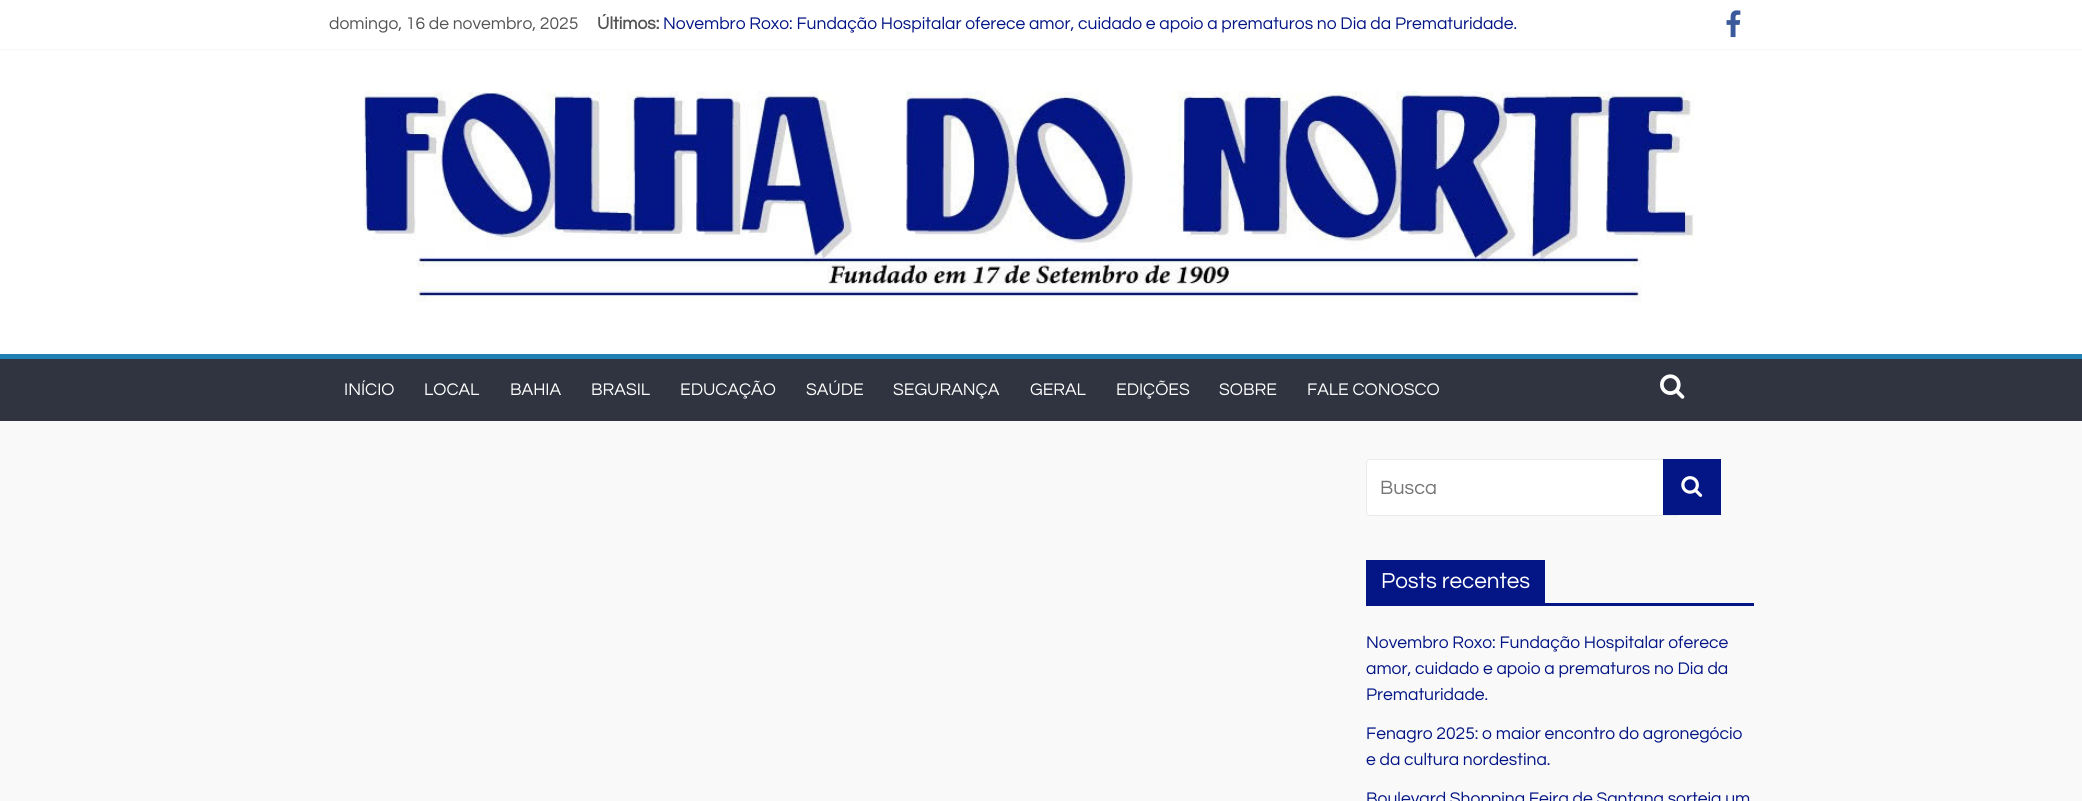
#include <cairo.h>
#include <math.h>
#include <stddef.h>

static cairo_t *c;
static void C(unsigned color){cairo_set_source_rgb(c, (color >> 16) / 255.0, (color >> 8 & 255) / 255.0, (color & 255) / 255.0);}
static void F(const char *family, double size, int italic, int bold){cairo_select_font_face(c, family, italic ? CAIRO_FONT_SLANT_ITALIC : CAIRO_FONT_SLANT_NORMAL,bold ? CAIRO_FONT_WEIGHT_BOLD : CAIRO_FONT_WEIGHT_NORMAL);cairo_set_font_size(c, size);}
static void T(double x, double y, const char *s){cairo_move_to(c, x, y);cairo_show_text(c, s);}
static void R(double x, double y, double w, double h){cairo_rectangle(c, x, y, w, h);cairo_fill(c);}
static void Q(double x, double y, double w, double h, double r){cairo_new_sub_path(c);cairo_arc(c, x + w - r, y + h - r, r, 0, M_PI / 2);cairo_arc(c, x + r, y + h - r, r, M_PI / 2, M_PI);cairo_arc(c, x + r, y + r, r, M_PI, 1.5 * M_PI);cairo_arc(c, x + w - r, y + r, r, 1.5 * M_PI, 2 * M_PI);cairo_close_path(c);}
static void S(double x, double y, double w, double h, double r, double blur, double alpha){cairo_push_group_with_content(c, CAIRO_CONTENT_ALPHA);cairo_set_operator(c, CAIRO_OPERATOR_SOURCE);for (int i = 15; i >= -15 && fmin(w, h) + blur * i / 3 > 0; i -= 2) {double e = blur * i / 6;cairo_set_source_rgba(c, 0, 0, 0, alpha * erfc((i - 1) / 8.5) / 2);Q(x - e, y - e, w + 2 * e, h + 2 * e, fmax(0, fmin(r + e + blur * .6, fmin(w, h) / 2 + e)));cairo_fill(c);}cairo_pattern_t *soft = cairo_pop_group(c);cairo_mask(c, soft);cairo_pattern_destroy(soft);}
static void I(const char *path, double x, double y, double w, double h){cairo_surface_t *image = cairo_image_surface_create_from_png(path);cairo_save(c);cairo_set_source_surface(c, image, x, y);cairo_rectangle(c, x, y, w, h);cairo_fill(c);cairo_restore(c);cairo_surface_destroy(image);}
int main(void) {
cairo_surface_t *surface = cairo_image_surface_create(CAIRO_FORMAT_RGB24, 2082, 801);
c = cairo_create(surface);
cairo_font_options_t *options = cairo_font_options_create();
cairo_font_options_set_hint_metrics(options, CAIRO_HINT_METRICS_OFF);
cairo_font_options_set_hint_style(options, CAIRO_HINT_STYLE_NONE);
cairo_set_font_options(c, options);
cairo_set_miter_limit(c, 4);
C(0xffffff);
cairo_paint(c);
C(0x000000);
S(0,0,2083,49,0,1,.1);
C(0xffffff);
R(0,0,2082,49);
F("Questrial",17.5,0,0);
C(0x555555);
T(329,29,"domingo, 16 de novembro, 2025");
F("Questrial",17.5,0,1);
T(597,29,"Últimos:");
F("Questrial",17.5,0,0);
C(0x041686);
T(663,29,"Novembro Roxo: Fundação Hospitalar oferece amor, cuidado e apoio a prematuros no Dia da Prematuridade.");
I("1.png",1726,10,15,28);
I("2.png",363,91,1331,211);
C(0x303440);
R(0,359,2082,62);
C(0x2181b5);
R(0,354,2082,5);
C(0xffffff);
T(344,395,"INÍCIO");
T(424,395,"LOCAL");
T(510,395,"BAHIA");
T(591,395,"BRASIL");
T(680,395,"EDUCAÇÃO");
T(806,395,"SAÚDE");
T(893,395,"SEGURANÇA");
T(1030,395,"GERAL");
T(1116,395,"EDIÇÕES");
T(1219,395,"SOBRE");
T(1307,395,"FALE CONOSCO");
I("3.png",1660,374,25,25);
C(0xf9f9f9);
R(0,421,2082,380);
C(0xffffff);
Q(1366.5,459.5,314,56,3.5);
cairo_fill_preserve(c);
C(0xeaeaea);
cairo_set_line_width(c,1);
cairo_stroke(c);
F("Questrial",20,0,0);
C(0x757575);
T(1380,494,"Busca");
C(0x041686);
R(1663,459,58,56);
I("4.png",1681,476,22,21);
R(1366,603,388,3);
R(1366,560,179,43);
F("Questrial",22.5,0,0);
C(0xffffff);
T(1381,588,"Posts recentes");
F("Questrial",17.5,0,0);
C(0x041686);
T(1366,648,"Novembro Roxo: Fundação Hospitalar oferece");
T(1366,674,"amor, cuidado e apoio a prematuros no Dia da");
T(1366,700,"Prematuridade.");
T(1366,739,"Fenagro 2025: o maior encontro do agronegócio");
T(1366,765,"e da cultura nordestina.");
T(1366,804,"Boulevard Shopping Feira de Santana sorteia um");
cairo_surface_write_to_png(surface, "o.png");
cairo_font_options_destroy(options);
cairo_destroy(c);
cairo_surface_destroy(surface);
return 0;
}
